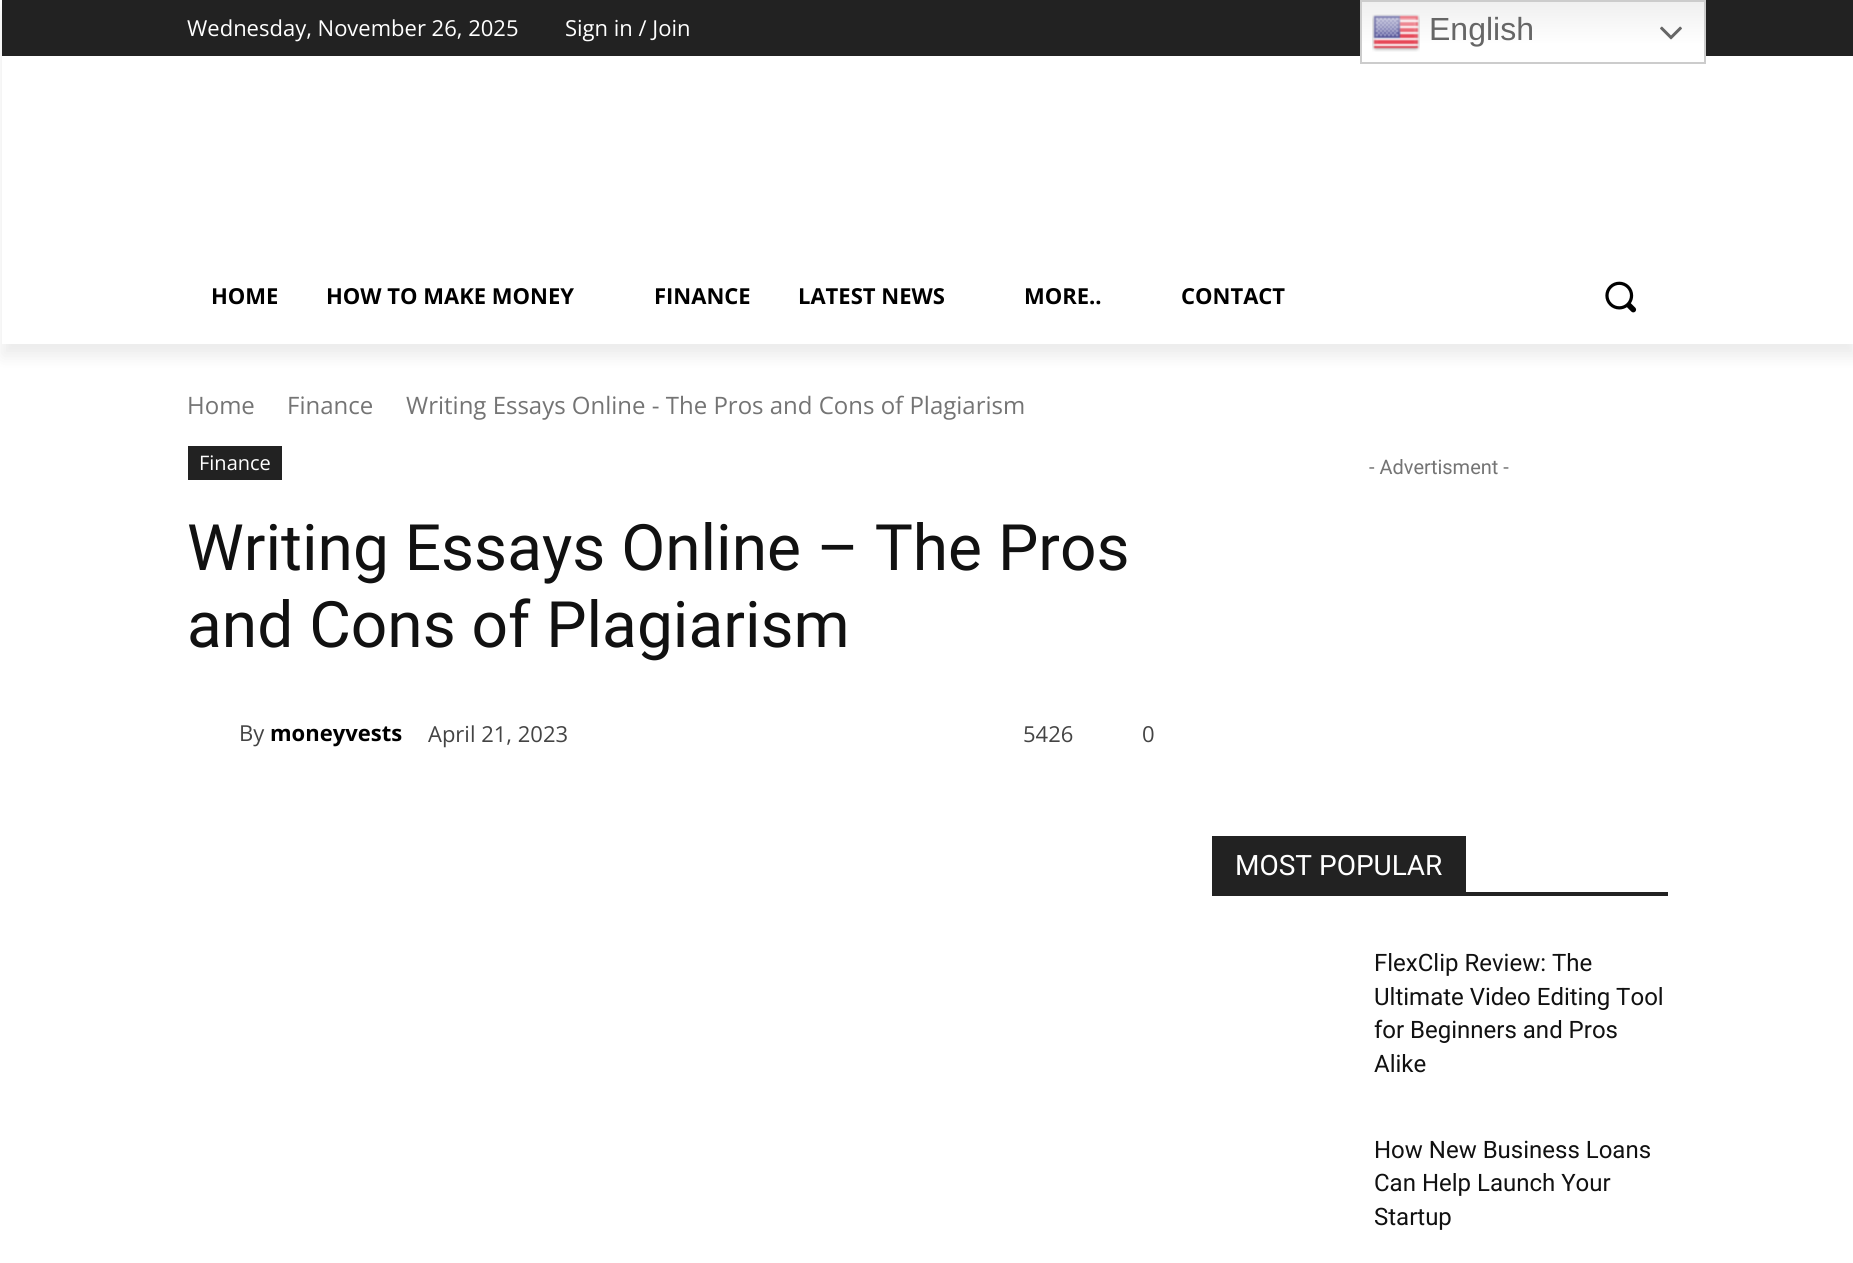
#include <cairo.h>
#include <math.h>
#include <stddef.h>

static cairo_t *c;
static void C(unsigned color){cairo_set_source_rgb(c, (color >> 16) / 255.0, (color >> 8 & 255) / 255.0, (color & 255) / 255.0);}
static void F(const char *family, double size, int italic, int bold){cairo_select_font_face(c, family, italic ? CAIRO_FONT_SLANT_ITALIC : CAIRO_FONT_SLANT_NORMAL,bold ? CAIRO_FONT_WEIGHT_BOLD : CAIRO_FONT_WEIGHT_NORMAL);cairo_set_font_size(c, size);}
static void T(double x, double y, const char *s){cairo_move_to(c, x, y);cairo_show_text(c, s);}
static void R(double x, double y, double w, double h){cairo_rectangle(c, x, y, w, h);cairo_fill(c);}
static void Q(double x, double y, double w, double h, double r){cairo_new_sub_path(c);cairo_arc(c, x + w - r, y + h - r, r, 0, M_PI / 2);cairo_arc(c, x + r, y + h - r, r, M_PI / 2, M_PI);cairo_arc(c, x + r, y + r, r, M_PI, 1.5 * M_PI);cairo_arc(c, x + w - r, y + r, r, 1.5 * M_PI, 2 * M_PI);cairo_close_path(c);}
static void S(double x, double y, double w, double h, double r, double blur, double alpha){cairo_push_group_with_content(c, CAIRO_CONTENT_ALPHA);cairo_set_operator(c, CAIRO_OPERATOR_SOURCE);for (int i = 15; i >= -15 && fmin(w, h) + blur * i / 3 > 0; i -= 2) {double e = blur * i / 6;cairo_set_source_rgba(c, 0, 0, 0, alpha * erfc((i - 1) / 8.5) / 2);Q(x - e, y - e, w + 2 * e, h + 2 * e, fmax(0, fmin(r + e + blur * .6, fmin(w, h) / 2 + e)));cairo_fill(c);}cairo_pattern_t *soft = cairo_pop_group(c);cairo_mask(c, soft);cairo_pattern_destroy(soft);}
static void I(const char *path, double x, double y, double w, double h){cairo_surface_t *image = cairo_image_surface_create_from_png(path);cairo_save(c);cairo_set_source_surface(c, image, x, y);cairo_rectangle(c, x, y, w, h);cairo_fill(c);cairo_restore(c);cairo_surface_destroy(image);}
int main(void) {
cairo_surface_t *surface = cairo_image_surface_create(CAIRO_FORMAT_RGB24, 1853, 1263);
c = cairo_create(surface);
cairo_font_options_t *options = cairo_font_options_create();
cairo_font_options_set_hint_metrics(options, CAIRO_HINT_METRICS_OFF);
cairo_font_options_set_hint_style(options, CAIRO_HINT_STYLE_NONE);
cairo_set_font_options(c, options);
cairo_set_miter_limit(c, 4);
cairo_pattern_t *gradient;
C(0xffffff);
cairo_paint(c);
C(0x222222);
R(2,0,1851,56);
cairo_save(c);
cairo_set_fill_rule(c,CAIRO_FILL_RULE_EVEN_ODD);
cairo_new_path(c);
cairo_move_to(c,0,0);
cairo_line_to(c,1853,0);
cairo_line_to(c,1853,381);
cairo_line_to(c,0,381);
cairo_close_path(c);
cairo_move_to(c,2,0);
cairo_line_to(c,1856,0);
cairo_line_to(c,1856,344);
cairo_line_to(c,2,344);
cairo_close_path(c);
cairo_clip(c);
C(0x000000);
S(2,12,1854,344,0,8,.08);
cairo_restore(c);
gradient = cairo_pattern_create_linear(1533,0,1533,64);
cairo_pattern_add_color_stop_rgba(gradient,0,0.937,0.937,0.937,1);
cairo_pattern_add_color_stop_rgba(gradient,.7,1,1,1,1);
cairo_set_source(c,gradient);
cairo_pattern_destroy(gradient);
R(1362,2,342,54);
cairo_rectangle(c,1361,1,344,62);
C(0xcccccc);
cairo_stroke(c);
I("1.png",1372,14,48,38);
F("Liberation Sans",32,0,0);
C(0x666666);
T(1429,40,"English");
I("2.png",1660,26,22,14);
F("Open Sans",22,0,0);
C(0xffffff);
T(187,36,"Wednesday, November 26, 2025");
T(565,36,"Sign in / Join");
F("Open Sans",22,0,1);
C(0x000000);
T(211,304,"HOME");
T(326,304,"HOW TO MAKE MONEY");
T(654,304,"FINANCE");
T(798,304,"LATEST NEWS");
T(1024,304,"MORE..");
T(1181,304,"CONTACT");
I("3.png",1605,281,32,32);
F("Open Sans",24,0,0);
C(0x747474);
T(187,414,"Home");
T(287,414,"Finance");
T(406,414,"Writing Essays Online - The Pros and Cons of Plagiarism");
C(0x222222);
R(188,446,94,34);
F("Open Sans",20,0,0);
C(0xffffff);
T(199,470,"Finance");
F("Roboto",64,0,0);
C(0x111111);
T(187,570,"Writing Essays Online – The Pros");
T(187,647,"and Cons of Plagiarism");
F("Open Sans",22,0,0);
C(0x444444);
T(239,741,"By");
F("Open Sans",22,0,1);
C(0x000000);
T(270,741,"moneyvests");
F("Open Sans",22,0,0);
C(0x444444);
T(428,742,"April 21, 2023");
T(1023,742,"5426");
T(1142,742,"0");
F("Roboto",20,0,0);
C(0x747474);
T(1369,474,"- Advertisment -");
C(0x222222);
R(1212,892,456,4);
R(1212,836,254,56);
F("Roboto",28,0,0);
C(0xffffff);
T(1235,875,"MOST POPULAR");
F("Roboto",24,0,0);
C(0x111111);
T(1374,971,"FlexClip Review: The");
T(1374,1005,"Ultimate Video Editing Tool");
T(1374,1038,"for Beginners and Pros");
T(1374,1072,"Alike");
T(1374,1158,"How New Business Loans");
T(1374,1191,"Can Help Launch Your");
T(1374,1225,"Startup");
cairo_surface_write_to_png(surface, "o.png");
cairo_font_options_destroy(options);
cairo_destroy(c);
cairo_surface_destroy(surface);
return 0;
}
